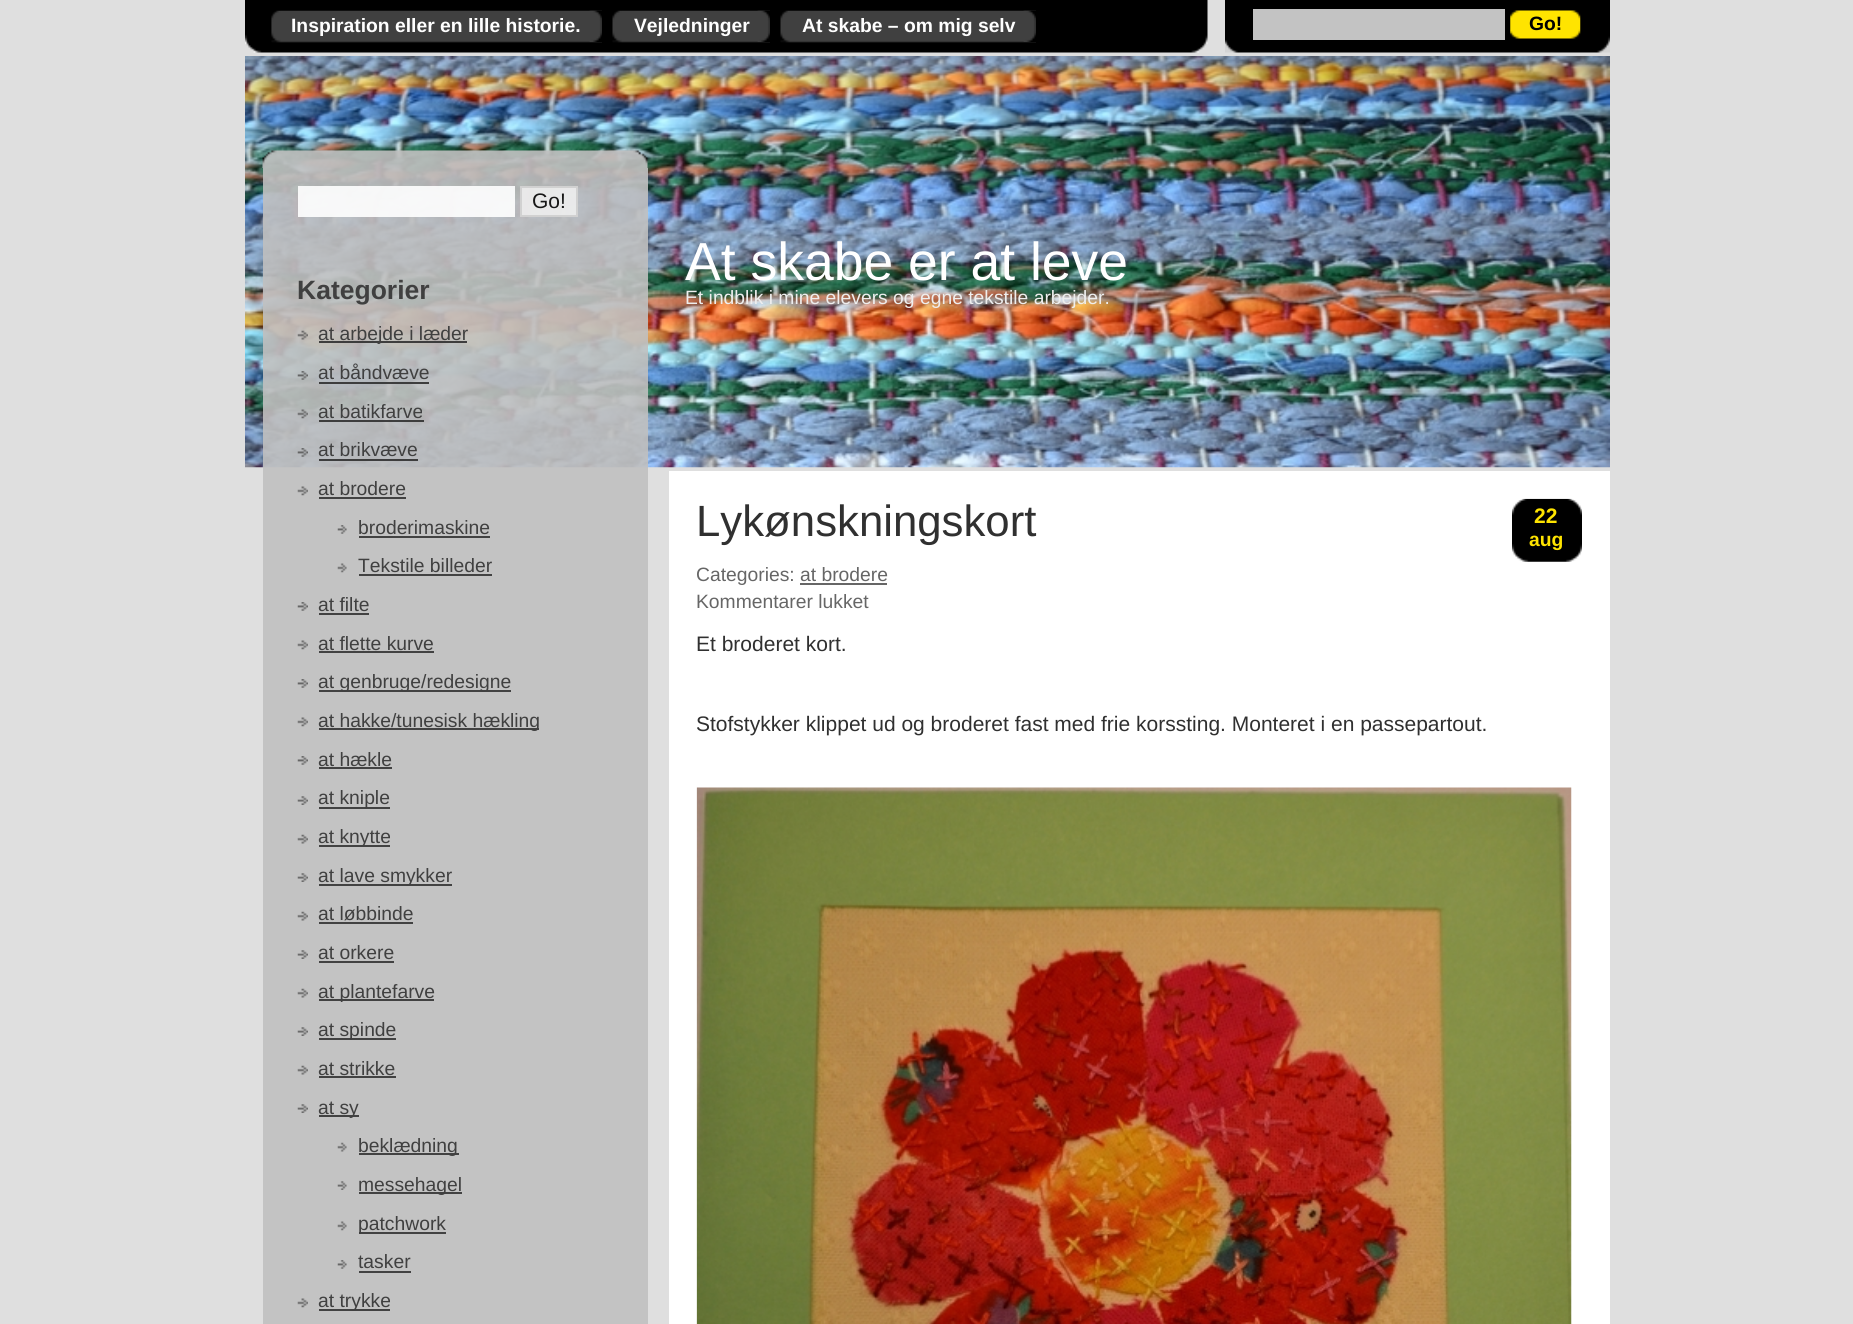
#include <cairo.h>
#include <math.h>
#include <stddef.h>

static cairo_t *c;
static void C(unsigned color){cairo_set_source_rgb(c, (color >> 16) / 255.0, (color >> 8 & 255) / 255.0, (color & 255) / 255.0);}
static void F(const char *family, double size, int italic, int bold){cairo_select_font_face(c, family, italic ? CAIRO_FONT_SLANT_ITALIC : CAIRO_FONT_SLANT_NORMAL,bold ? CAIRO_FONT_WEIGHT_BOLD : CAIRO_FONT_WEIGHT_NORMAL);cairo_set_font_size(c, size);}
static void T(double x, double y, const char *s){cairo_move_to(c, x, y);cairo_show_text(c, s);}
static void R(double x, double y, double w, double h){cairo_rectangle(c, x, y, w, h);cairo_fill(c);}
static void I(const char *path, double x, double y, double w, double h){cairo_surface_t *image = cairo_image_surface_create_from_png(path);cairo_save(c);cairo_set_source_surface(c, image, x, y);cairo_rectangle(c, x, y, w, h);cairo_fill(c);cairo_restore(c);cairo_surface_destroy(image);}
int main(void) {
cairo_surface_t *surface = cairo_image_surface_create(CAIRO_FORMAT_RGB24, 1853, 1324);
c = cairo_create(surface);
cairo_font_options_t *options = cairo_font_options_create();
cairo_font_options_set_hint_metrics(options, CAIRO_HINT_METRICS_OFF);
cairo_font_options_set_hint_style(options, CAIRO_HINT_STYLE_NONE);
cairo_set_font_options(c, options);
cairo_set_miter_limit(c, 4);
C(0xdfdfdf);
cairo_paint(c);
I("1.png",245,56,1365,412);
I("2.png",245,0,963,53);
I("3.png",271,10,331,33);
I("4.png",589,10,13,32);
F("Liberation Sans",19.3,0,1);
C(0xffffff);
T(291,32,"Inspiration eller en lille historie.");
I("5.png",612,10,158,33);
I("4.png",757,10,13,32);
T(634,32,"Vejledninger");
I("6.png",780,10,256,33);
I("7.png",1023,10,13,32);
T(802,32,"At skabe – om mig selv");
I("8.png",1225,0,385,53);
C(0xc3c3c3);
R(1253,9,252,31);
I("9.png",1510,10,71,29);
C(0x000000);
T(1529,30,"Go!");
I("10.png",262,150,386,18);
cairo_set_source_rgba(c,0.753,0.753,0.753,0.9);
R(263,168,385,1156);
cairo_set_source_rgba(c,1,1,1,0.9);
R(298,186,217,31);
cairo_set_source_rgba(c,0.937,0.937,0.937,0.9);
cairo_rectangle(c,521,187,56,29);
cairo_fill_preserve(c);
C(0xd1d1d1);
cairo_stroke(c);
F("Liberation Sans",21,0,0);
C(0x171717);
T(532,208,"Go!");
F("Liberation Sans",26.5,0,1);
C(0x404040);
T(297,299,"Kategorier");
I("11.png",297,330,11,10);
cairo_set_source_rgba(c,0.188,0.188,0.188,0.9);
R(319,341,148,2);
F("Liberation Sans",19.3,0,0);
C(0x404040);
T(318,340,"at arbejde i læder");
I("12.png",297,371,11,9);
T(318,379,"at båndvæve");
cairo_set_source_rgba(c,0.188,0.188,0.188,0.9);
R(319,382,110,2);
I("13.png",297,409,11,10);
C(0x404040);
T(318,418,"at batikfarve");
cairo_set_source_rgba(c,0.188,0.188,0.188,0.9);
R(319,420,105,2);
I("14.png",297,448,11,9);
C(0x404040);
T(318,456,"at brikvæve");
cairo_set_source_rgba(c,0.188,0.188,0.188,0.9);
R(319,459,99,2);
I("15.png",297,486,11,10);
C(0x404040);
T(318,495,"at brodere");
C(0x424242);
R(319,497,87,2);
I("16.png",337,525,10,9);
C(0x404040);
T(358,534,"broderimaskine");
C(0x424242);
R(359,536,131,2);
I("17.png",337,563,10,10);
C(0x404040);
T(358,572,"Tekstile billeder");
C(0x424242);
R(359,574,133,2);
I("18.png",297,602,11,9);
C(0x404040);
T(318,611,"at filte");
C(0x424242);
R(319,613,50,2);
I("15.png",297,640,11,10);
C(0x404040);
T(318,650,"at flette kurve");
C(0x424242);
R(319,651,115,2);
I("18.png",297,679,11,9);
R(319,690,192,2);
C(0x404040);
T(318,688,"at genbruge/redesigne");
I("15.png",297,717,11,10);
C(0x424242);
R(319,728,220,2);
C(0x404040);
T(318,727,"at hakke/tunesisk hækling");
I("18.png",297,756,11,9);
T(318,766,"at hækle");
C(0x424242);
R(319,767,73,2);
I("19.png",297,796,11,9);
R(319,807,71,2);
C(0x404040);
T(318,804,"at kniple");
I("20.png",297,834,11,10);
C(0x424242);
R(319,845,71,2);
C(0x404040);
T(318,843,"at knytte");
I("19.png",297,873,11,9);
C(0x424242);
R(319,884,133,2);
C(0x404040);
T(318,882,"at lave smykker");
I("20.png",297,911,11,10);
T(318,920,"at løbbinde");
C(0x424242);
R(319,922,94,2);
I("19.png",297,950,11,9);
C(0x404040);
T(318,959,"at orkere");
C(0x424242);
R(319,961,75,2);
I("20.png",297,988,11,10);
R(319,999,115,2);
C(0x404040);
T(318,998,"at plantefarve");
I("19.png",297,1027,11,9);
C(0x424242);
R(319,1038,77,2);
C(0x404040);
T(318,1036,"at spinde");
I("20.png",297,1065,11,10);
T(318,1075,"at strikke");
C(0x424242);
R(319,1076,77,2);
I("19.png",297,1104,11,9);
R(319,1115,40,2);
C(0x404040);
T(318,1114,"at sy");
I("21.png",337,1142,10,10);
C(0x424242);
R(359,1153,100,2);
C(0x404040);
T(358,1152,"beklædning");
I("22.png",337,1181,10,9);
C(0x424242);
R(359,1192,103,2);
C(0x404040);
T(358,1191,"messehagel");
I("17.png",337,1221,10,10);
C(0x424242);
R(359,1232,87,2);
C(0x404040);
T(358,1230,"patchwork");
I("16.png",337,1260,10,9);
T(358,1268,"tasker");
C(0x424242);
R(359,1271,52,2);
I("15.png",297,1298,11,10);
R(319,1309,71,2);
C(0x404040);
T(318,1307,"at trykke");
F("Liberation Sans",53.5,0,0);
C(0xffffff);
T(685,280,"At skabe er at leve");
F("Liberation Sans",19.3,0,0);
C(0xeeeeee);
T(685,304,"Et indblik i mine elevers og egne tekstile arbejder.");
C(0xffffff);
R(669,471,941,853);
F("Liberation Sans",43.75,0,0);
C(0x303030);
T(696,536,"Lykønskningskort");
I("23.png",1512,498,70,64);
F("Liberation Sans",21,0,1);
C(0xffe400);
T(1534,523,"22");
F("Liberation Sans",19.3,0,1);
T(1529,546,"aug");
cairo_save(c);
cairo_rectangle(c,697,499,885,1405);
cairo_clip(c);
F("Liberation Sans",19.3,0,0);
C(0x666666);
T(696,581,"Categories:");
cairo_restore(c);
F("Liberation Sans",19.3,0,0);
C(0x666666);
T(800,581,"at brodere");
R(800,583,87,2);
T(696,608,"Kommentarer lukket");
F("Liberation Sans",21,0,0);
C(0x303030);
T(696,651,"Et broderet kort.");
T(696,731,"Stofstykker klippet ud og broderet fast med frie korssting. Monteret i en passepartout.");
I("24.png",696,787,876,537);
cairo_surface_write_to_png(surface, "o.png");
cairo_font_options_destroy(options);
cairo_destroy(c);
cairo_surface_destroy(surface);
return 0;
}
